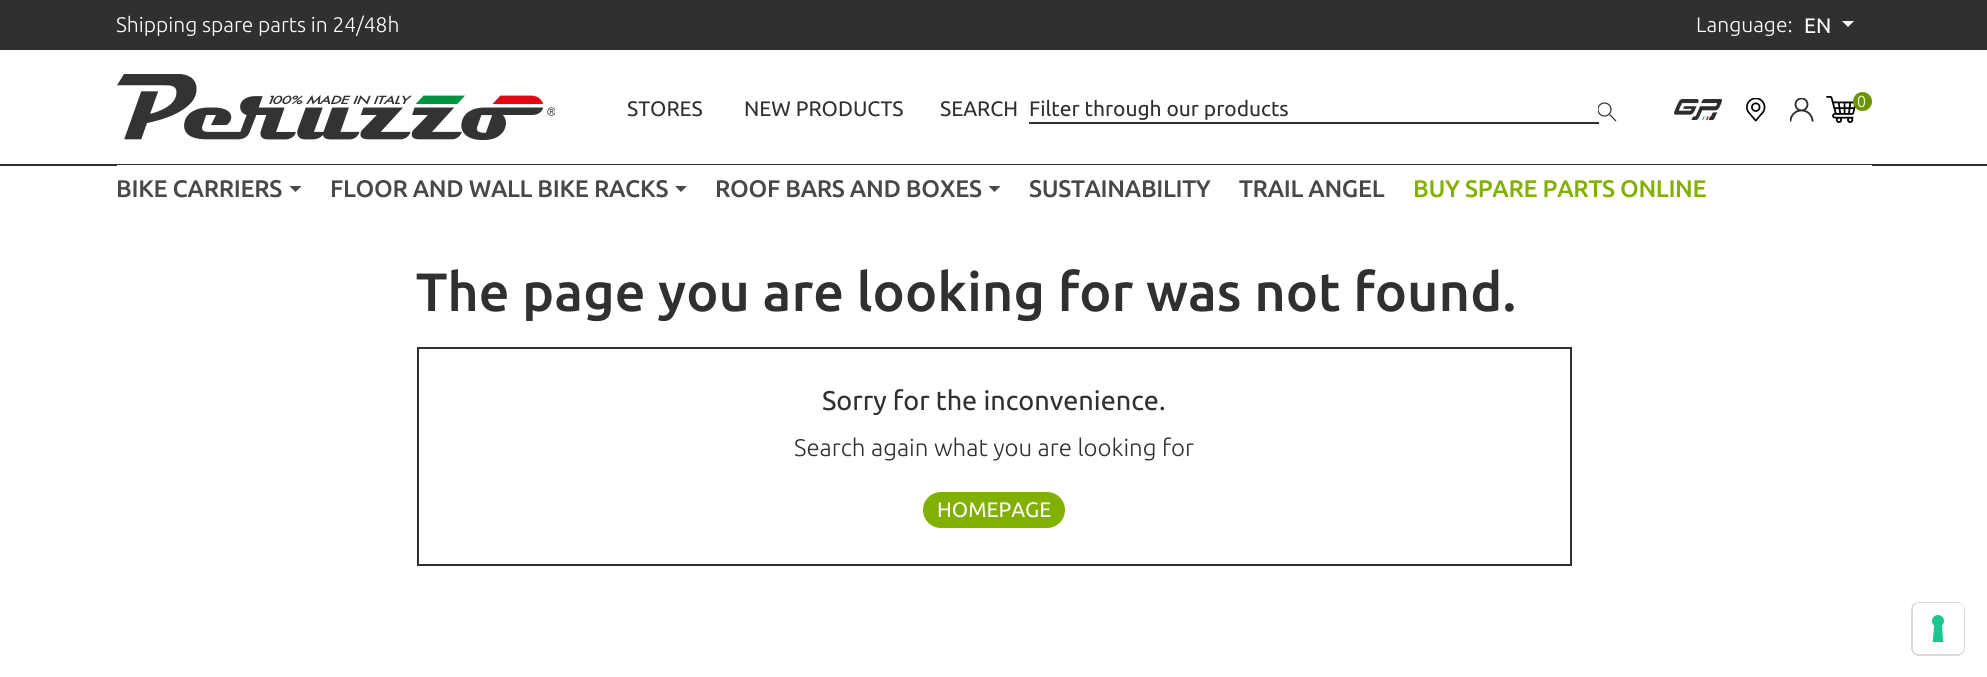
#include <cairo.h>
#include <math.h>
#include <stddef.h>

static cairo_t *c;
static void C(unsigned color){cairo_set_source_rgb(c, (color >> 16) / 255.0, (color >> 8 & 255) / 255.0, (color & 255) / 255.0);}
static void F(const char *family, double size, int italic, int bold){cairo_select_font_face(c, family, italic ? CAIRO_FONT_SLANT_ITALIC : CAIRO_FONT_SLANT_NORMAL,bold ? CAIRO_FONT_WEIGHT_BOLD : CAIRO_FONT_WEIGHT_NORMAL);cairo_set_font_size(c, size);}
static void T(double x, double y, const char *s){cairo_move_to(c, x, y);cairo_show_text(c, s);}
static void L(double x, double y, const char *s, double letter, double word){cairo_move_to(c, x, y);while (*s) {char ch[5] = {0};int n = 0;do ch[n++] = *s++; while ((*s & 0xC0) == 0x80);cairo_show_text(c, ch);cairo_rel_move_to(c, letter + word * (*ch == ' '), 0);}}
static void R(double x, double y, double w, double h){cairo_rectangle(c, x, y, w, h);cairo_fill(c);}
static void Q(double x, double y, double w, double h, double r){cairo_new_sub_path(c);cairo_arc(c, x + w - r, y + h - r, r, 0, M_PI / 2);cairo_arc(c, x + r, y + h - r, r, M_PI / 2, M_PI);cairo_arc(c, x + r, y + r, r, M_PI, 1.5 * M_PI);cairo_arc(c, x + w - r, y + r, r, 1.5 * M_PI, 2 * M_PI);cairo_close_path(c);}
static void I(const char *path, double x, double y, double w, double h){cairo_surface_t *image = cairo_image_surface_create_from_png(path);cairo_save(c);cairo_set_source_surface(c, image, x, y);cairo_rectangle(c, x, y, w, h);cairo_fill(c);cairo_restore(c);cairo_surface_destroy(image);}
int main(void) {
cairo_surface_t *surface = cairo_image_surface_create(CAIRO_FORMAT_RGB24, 1987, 677);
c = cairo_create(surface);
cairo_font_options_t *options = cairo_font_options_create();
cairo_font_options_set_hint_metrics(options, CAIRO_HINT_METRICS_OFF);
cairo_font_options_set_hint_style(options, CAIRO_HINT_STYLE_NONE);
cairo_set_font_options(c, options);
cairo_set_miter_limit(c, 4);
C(0xffffff);
cairo_paint(c);
C(0x303030);
R(0,0,1987,50);
F("Ubuntu Light",21,0,0);
C(0xffffff);
T(116,32,"Shipping spare parts in 24/48h");
T(1696,32,"Language:");
F("Ubuntu",21,0,0);
T(1804,33,"EN");
cairo_new_path(c);
cairo_move_to(c,1842,21);
cairo_line_to(c,1854,21);
cairo_line_to(c,1848,27);
cairo_close_path(c);
cairo_fill(c);
I("1.png",117,74,438,66);
C(0x303030);
T(627,116,"STORES");
T(744,116,"NEW PRODUCTS");
T(940,116,"SEARCH");
R(1029,122,570,2);
T(1029,116,"Filter through our products");
cairo_save(c);
cairo_rectangle(c,1598,102,19,20);
cairo_clip(c);
cairo_arc(c,1604.5,109.5,6.5,0,2 * M_PI);
cairo_set_line_width(c,1.2);
cairo_stroke(c);
cairo_restore(c);
cairo_new_path(c);
cairo_move_to(c,1609.5,114.5);
cairo_line_to(c,1616,121);
cairo_set_line_width(c,1.2);
cairo_set_line_join(c,CAIRO_LINE_JOIN_ROUND);
cairo_stroke(c);
I("2.png",1674,99,48,21);
I("3.png",1746,98,20,24);
I("4.png",1790,98,24,24);
I("5.png",1826,96,30,27);
C(0x6c9400);
cairo_arc(c,1862.5,101.5,9.5,0,2 * M_PI);
cairo_fill(c);
F("Ubuntu Light",16,0,0);
C(0xffffff);
T(1857,107,"0");
C(0x303030);
R(0,164,1987,2);
C(0xffffff);
R(117,165,1755,1);
F("Ubuntu Medium",24,0,0);
C(0x484848);
L(116,197,"BIKE CARRIERS",-.3,0);
cairo_new_path(c);
cairo_move_to(c,289.5,186);
cairo_line_to(c,301.5,186);
cairo_line_to(c,295.5,192);
cairo_close_path(c);
cairo_fill(c);
L(330,197,"FLOOR AND WALL BIKE RACKS",-.3,0);
cairo_new_path(c);
cairo_move_to(c,675,186);
cairo_line_to(c,687,186);
cairo_line_to(c,681,192);
cairo_close_path(c);
cairo_fill(c);
L(715,197,"ROOF BARS AND BOXES",-.3,0);
cairo_new_path(c);
cairo_move_to(c,988.5,186);
cairo_line_to(c,1000.5,186);
cairo_line_to(c,994.5,192);
cairo_close_path(c);
cairo_fill(c);
L(1029,197,"SUSTAINABILITY",-.3,0);
L(1239,197,"TRAIL ANGEL",-.3,0);
C(0x82b000);
L(1413,197,"BUY SPARE PARTS ONLINE",-.3,0);
F("Ubuntu Medium",54,0,0);
C(0x303030);
T(416,311,"The page you are looking for was not found.");
cairo_rectangle(c,418,348,1153,217);
cairo_set_line_width(c,2);
cairo_set_line_join(c,CAIRO_LINE_JOIN_MITER);
cairo_stroke(c);
F("Ubuntu",27,0,0);
T(822,410,"Sorry for the inconvenience.");
F("Ubuntu Light",24,0,0);
T(794,456,"Search again what you are looking for");
C(0x82b000);
Q(924,493,140,34,17);
cairo_fill_preserve(c);
cairo_stroke(c);
F("Ubuntu",21,0,0);
C(0xffffff);
T(937,517,"HOMEPAGE");
Q(1912,603,52,52,7);
C(0xd9d9d9);
cairo_stroke(c);
C(0xffffff);
Q(1913,603,51,51,6);
cairo_fill(c);
I("6.png",1932,615,12,27);
cairo_surface_write_to_png(surface, "o.png");
cairo_font_options_destroy(options);
cairo_destroy(c);
cairo_surface_destroy(surface);
return 0;
}
